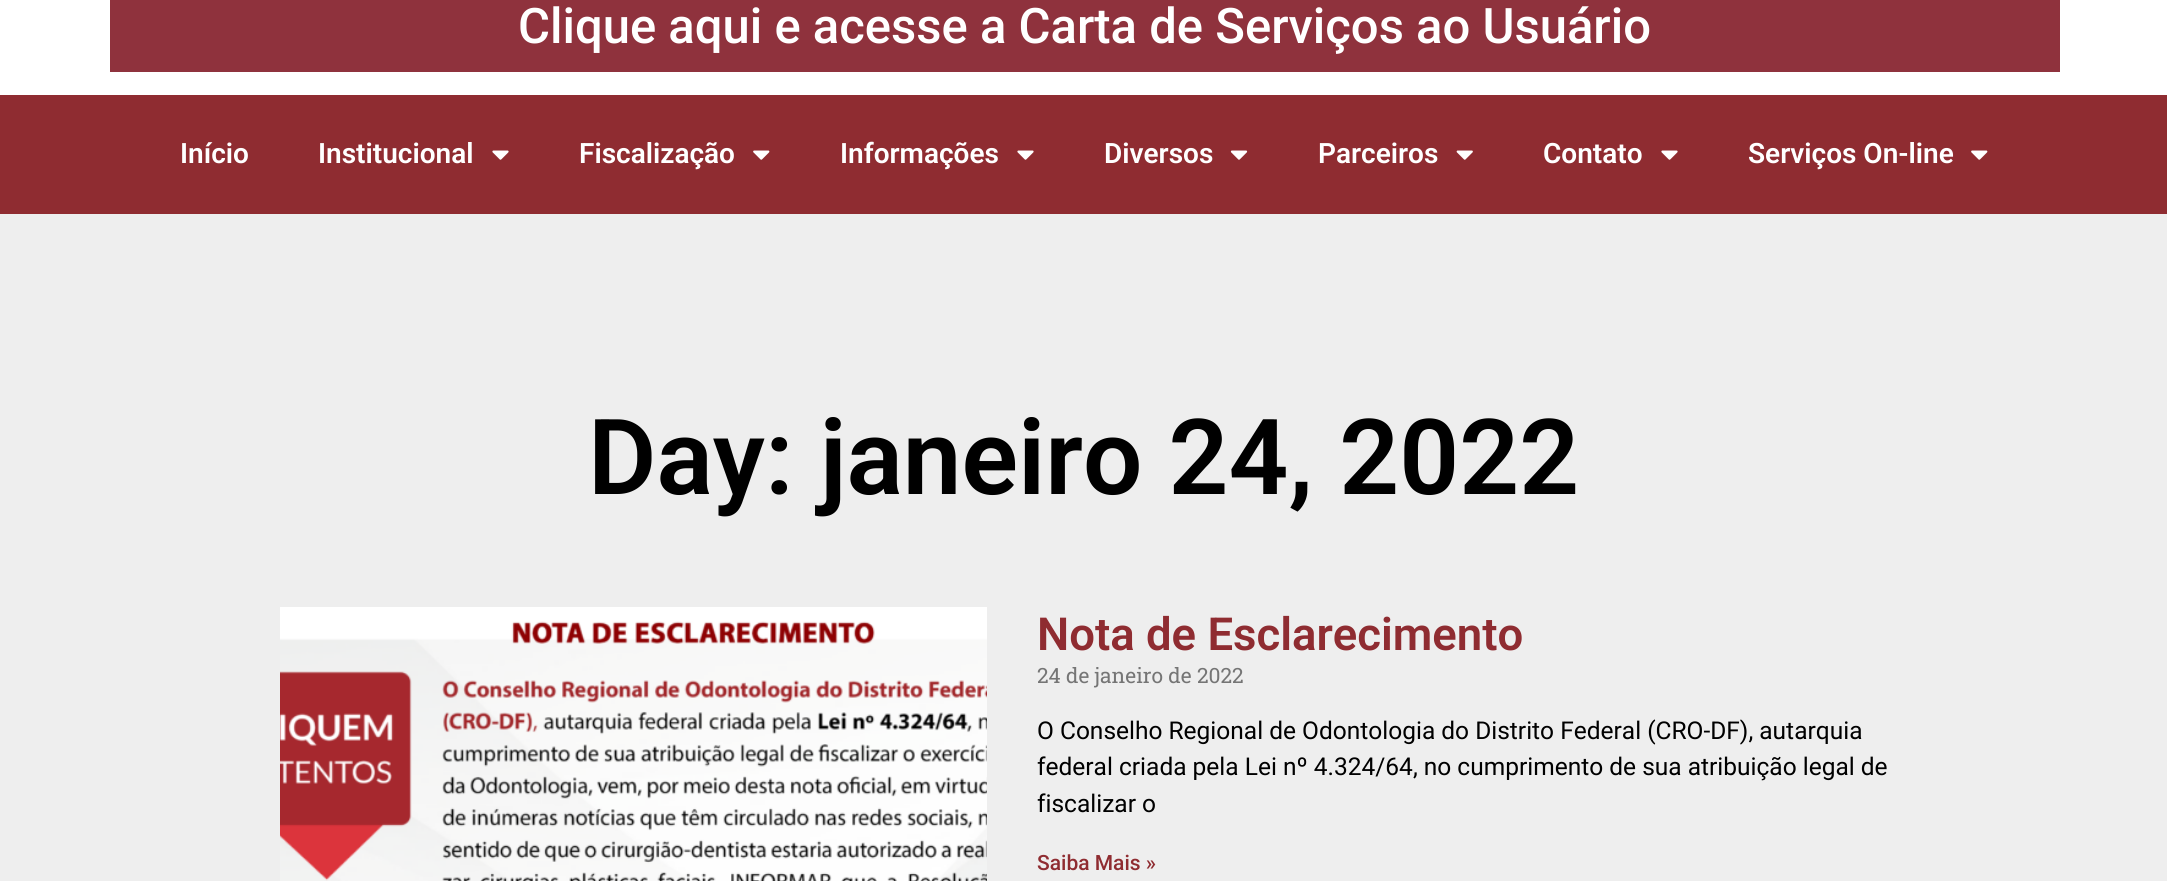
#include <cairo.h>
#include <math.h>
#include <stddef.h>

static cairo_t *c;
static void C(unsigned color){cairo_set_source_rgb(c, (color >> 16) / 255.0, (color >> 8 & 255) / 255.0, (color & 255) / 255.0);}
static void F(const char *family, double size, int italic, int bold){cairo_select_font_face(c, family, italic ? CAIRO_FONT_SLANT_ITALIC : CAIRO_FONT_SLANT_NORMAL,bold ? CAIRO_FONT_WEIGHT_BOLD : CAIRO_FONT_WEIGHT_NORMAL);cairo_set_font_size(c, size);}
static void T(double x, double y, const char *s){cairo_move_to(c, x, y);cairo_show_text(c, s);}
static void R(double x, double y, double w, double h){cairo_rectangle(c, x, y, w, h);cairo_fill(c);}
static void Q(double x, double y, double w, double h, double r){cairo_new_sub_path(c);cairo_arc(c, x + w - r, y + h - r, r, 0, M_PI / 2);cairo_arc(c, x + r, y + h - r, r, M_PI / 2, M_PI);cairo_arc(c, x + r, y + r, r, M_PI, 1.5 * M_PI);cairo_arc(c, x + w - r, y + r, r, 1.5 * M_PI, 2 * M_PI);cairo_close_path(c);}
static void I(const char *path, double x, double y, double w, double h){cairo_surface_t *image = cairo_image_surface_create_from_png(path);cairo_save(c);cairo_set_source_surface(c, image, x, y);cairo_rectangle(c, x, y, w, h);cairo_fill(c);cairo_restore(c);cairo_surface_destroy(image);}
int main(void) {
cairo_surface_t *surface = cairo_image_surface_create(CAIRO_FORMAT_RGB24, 2167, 881);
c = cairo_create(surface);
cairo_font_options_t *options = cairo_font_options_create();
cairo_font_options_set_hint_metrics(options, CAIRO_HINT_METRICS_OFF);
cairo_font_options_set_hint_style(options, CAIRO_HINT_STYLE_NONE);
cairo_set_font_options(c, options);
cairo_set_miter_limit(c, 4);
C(0xffffff);
cairo_paint(c);
C(0x8f323d);
Q(107.5,-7.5,1955,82,2.5);
cairo_fill_preserve(c);
C(0xffffff);
cairo_set_line_width(c,5);
cairo_stroke(c);
F("Roboto Medium",49,0,0);
T(518,43,"Clique aqui e acesse a Carta de Serviços ao Usuário");
C(0x8f2c31);
R(0,95,2167,119);
F("Roboto SemiBold",28,0,0);
C(0xffffff);
T(180,163,"Início");
T(318,163,"Institucional");
I("1.png",492,150,17,10);
T(579,163,"Fiscalização");
I("2.png",753,150,17,10);
T(840,163,"Informações");
I("1.png",1017,150,17,10);
T(1104,163,"Diversos");
I("3.png",1230,150,18,10);
T(1318,163,"Parceiros");
I("4.png",1456,150,17,10);
T(1543,163,"Contato");
I("1.png",1661,150,17,10);
T(1748,163,"Serviços On-line");
I("2.png",1971,150,17,10);
C(0xeeeeee);
R(0,214,2167,667);
F("Roboto SemiBold",105,0,0);
C(0x000000);
T(588,494,"Day: janeiro 24, 2022");
I("5.png",280,607,707,274);
F("Roboto SemiBold",45.5,0,0);
C(0x8f2c31);
T(1037,650,"Nota de Esclarecimento");
F("Roboto Slab",21,0,0);
C(0x757575);
T(1037,683,"24 de janeiro de 2022");
F("Roboto",24.5,0,0);
C(0x000000);
T(1037,739,"O Conselho Regional de Odontologia do Distrito Federal (CRO-DF), autarquia");
T(1037,775,"federal criada pela Lei nº 4.324/64, no cumprimento de sua atribuição legal de");
T(1037,812,"fiscalizar o");
F("Roboto Medium",21,0,0);
C(0x8f2c31);
T(1037,870,"Saiba Mais »");
cairo_surface_write_to_png(surface, "o.png");
cairo_font_options_destroy(options);
cairo_destroy(c);
cairo_surface_destroy(surface);
return 0;
}
